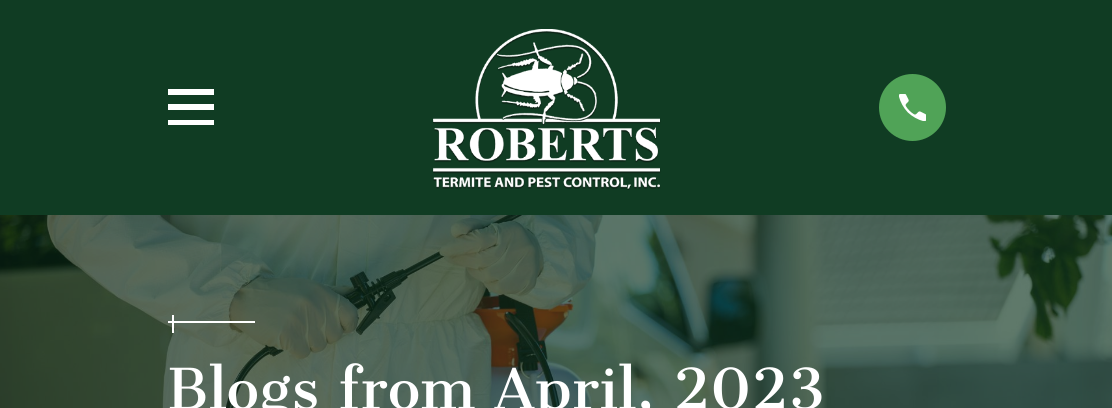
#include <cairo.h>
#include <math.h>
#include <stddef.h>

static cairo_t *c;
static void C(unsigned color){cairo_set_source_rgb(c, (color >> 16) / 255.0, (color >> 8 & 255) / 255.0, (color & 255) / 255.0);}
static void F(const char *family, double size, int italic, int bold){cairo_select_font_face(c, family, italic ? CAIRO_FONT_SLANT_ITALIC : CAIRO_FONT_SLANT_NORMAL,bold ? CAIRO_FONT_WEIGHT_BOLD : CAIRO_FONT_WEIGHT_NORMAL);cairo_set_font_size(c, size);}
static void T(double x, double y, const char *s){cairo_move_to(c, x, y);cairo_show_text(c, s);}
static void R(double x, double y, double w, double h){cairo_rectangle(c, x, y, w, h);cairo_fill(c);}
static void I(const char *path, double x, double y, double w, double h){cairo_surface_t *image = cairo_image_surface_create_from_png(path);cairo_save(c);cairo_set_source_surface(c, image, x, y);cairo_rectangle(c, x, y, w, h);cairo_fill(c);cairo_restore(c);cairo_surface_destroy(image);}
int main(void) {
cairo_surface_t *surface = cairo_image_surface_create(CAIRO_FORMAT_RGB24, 1112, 408);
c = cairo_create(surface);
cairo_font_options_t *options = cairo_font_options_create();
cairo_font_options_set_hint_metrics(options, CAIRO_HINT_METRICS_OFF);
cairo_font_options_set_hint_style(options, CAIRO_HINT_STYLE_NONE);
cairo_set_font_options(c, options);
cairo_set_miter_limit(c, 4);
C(0xffffff);
cairo_paint(c);
C(0x103c23);
R(0,0,1112,215);
C(0xffffff);
cairo_new_path(c);
cairo_move_to(c,168,89);
cairo_line_to(c,168,95);
cairo_line_to(c,214,95);
cairo_line_to(c,214,89);
cairo_close_path(c);
cairo_move_to(c,168,104);
cairo_line_to(c,168,110);
cairo_line_to(c,214,110);
cairo_line_to(c,214,104);
cairo_close_path(c);
cairo_move_to(c,168,120);
cairo_line_to(c,168,125);
cairo_line_to(c,214,125);
cairo_line_to(c,214,120);
cairo_close_path(c);
cairo_fill(c);
I("1.png",433,29,228,161);
C(0x50a357);
cairo_arc(c,912.5,107.5,33.5,0,2 * M_PI);
cairo_fill(c);
I("2.png",899,94,27,27);
I("3.png",0,215,1112,193);
C(0xffffff);
R(168,321,87,2);
R(172,315,2,18);
F("Cantata One",55.25,0,0);
T(167,409,"Blogs from April, 2023");
cairo_surface_write_to_png(surface, "o.png");
cairo_font_options_destroy(options);
cairo_destroy(c);
cairo_surface_destroy(surface);
return 0;
}
